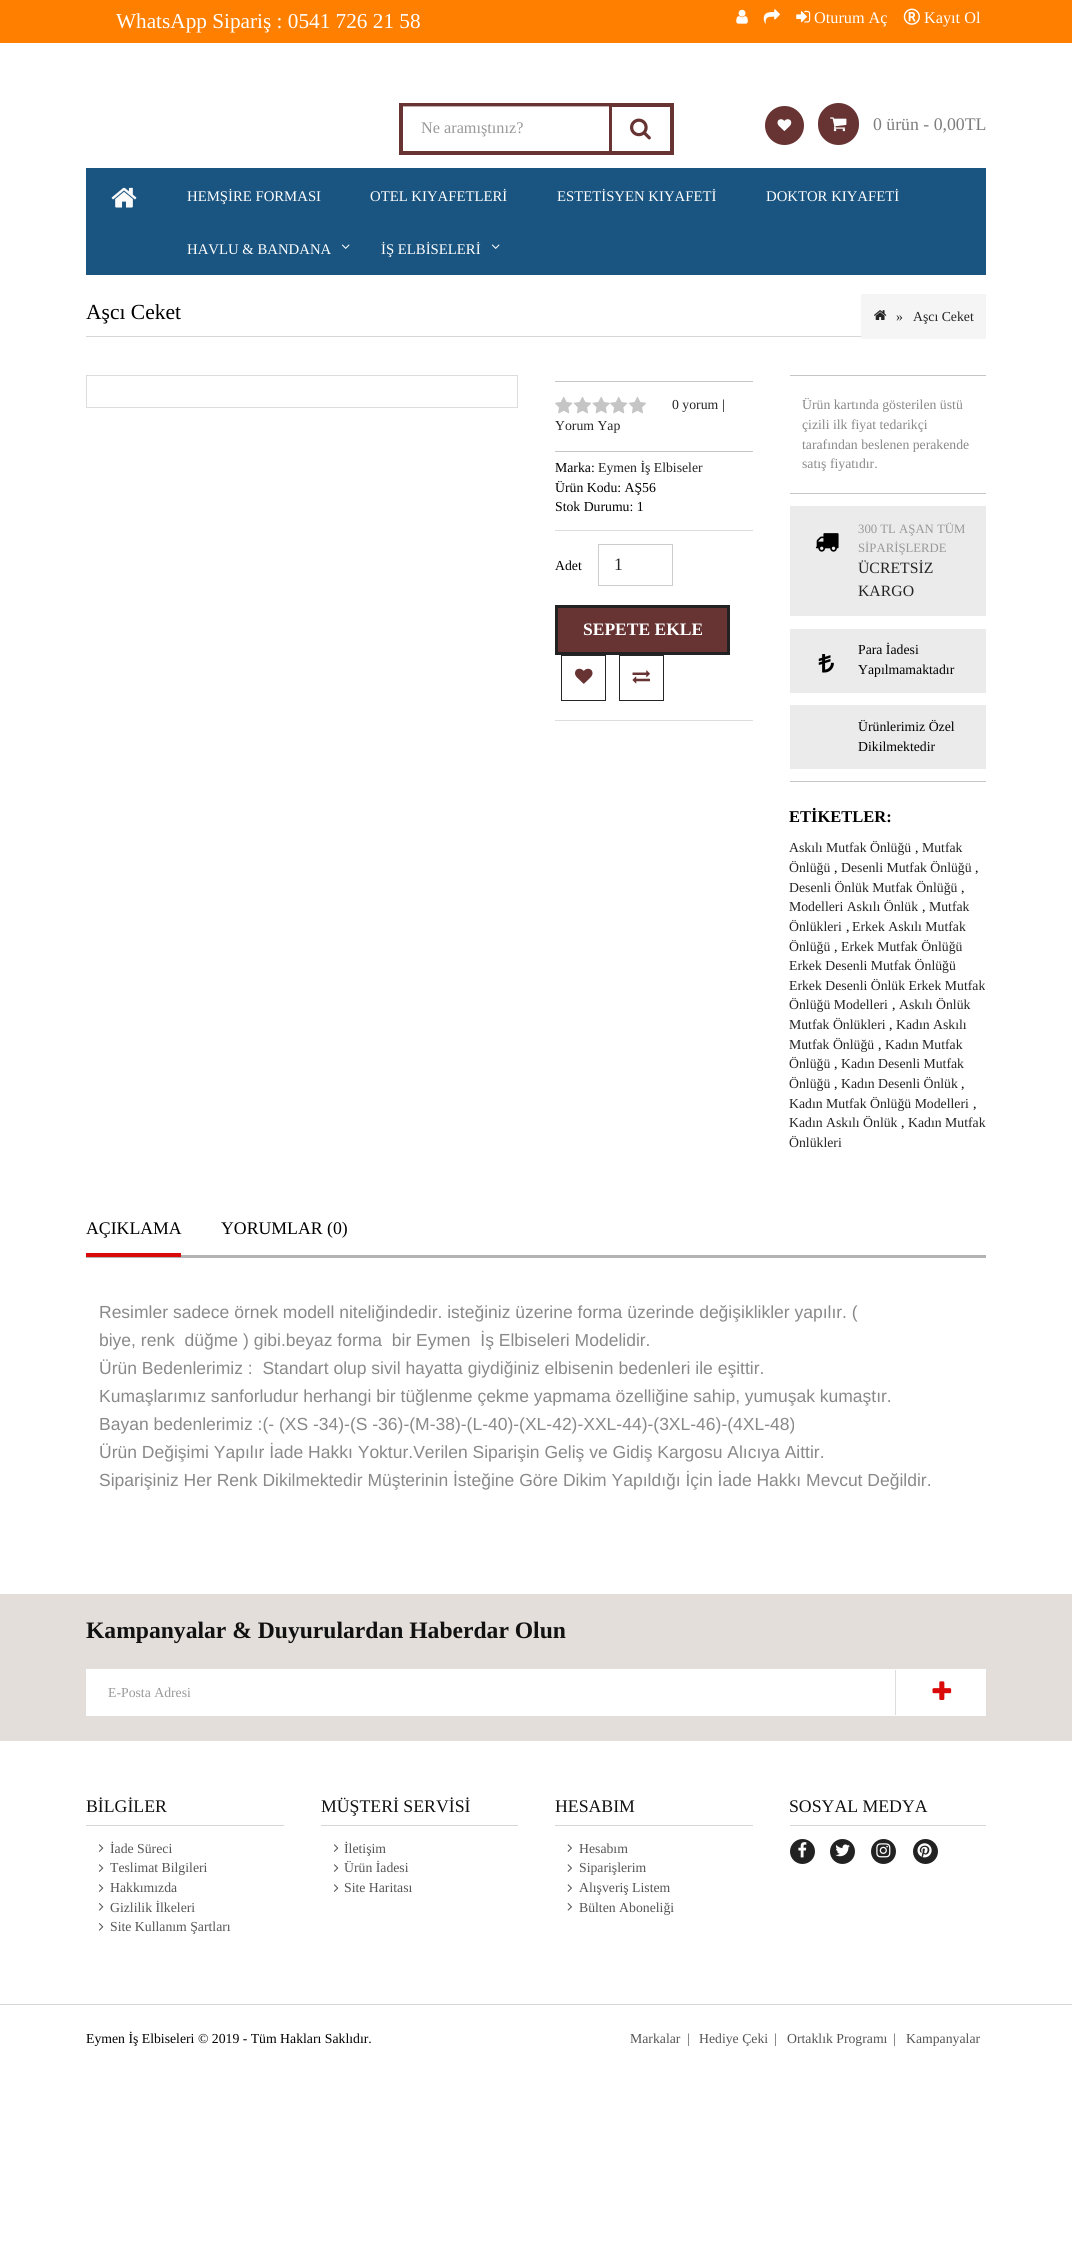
#include <cairo.h>
#include <math.h>
#include <stddef.h>

static cairo_t *c;
static void C(unsigned color){cairo_set_source_rgb(c, (color >> 16) / 255.0, (color >> 8 & 255) / 255.0, (color & 255) / 255.0);}
static void F(const char *family, double size, int italic, int bold){cairo_select_font_face(c, family, italic ? CAIRO_FONT_SLANT_ITALIC : CAIRO_FONT_SLANT_NORMAL,bold ? CAIRO_FONT_WEIGHT_BOLD : CAIRO_FONT_WEIGHT_NORMAL);cairo_set_font_size(c, size);}
static void T(double x, double y, const char *s){cairo_move_to(c, x, y);cairo_show_text(c, s);}
static void R(double x, double y, double w, double h){cairo_rectangle(c, x, y, w, h);cairo_fill(c);}
static void Q(double x, double y, double w, double h, double r){cairo_new_sub_path(c);cairo_arc(c, x + w - r, y + h - r, r, 0, M_PI / 2);cairo_arc(c, x + r, y + h - r, r, M_PI / 2, M_PI);cairo_arc(c, x + r, y + r, r, M_PI, 1.5 * M_PI);cairo_arc(c, x + w - r, y + r, r, 1.5 * M_PI, 2 * M_PI);cairo_close_path(c);}
static void I(const char *path, double x, double y, double w, double h){cairo_surface_t *image = cairo_image_surface_create_from_png(path);cairo_save(c);cairo_set_source_surface(c, image, x, y);cairo_rectangle(c, x, y, w, h);cairo_fill(c);cairo_restore(c);cairo_surface_destroy(image);}
int main(void) {
cairo_surface_t *surface = cairo_image_surface_create(CAIRO_FORMAT_RGB24, 1072, 2253);
c = cairo_create(surface);
cairo_font_options_t *options = cairo_font_options_create();
cairo_font_options_set_hint_metrics(options, CAIRO_HINT_METRICS_OFF);
cairo_font_options_set_hint_style(options, CAIRO_HINT_STYLE_NONE);
cairo_set_font_options(c, options);
cairo_set_miter_limit(c, 4);
C(0xffffff);
cairo_paint(c);
C(0xff7f00);
R(0,0,1072,43);
F("Liberation Serif",21.25,0,0);
C(0xffffff);
T(116,28,"WhatsApp Sipariş : 0541 726 21 58");
I("1.png",736,9,12,15);
I("2.png",763,9,17,15);
I("3.png",796,10,15,13);
F("Liberation Serif",16.25,0,0);
T(814,23,"Oturum Aç");
I("4.png",903,8,17,17);
T(924,23,"Kayıt Ol");
cairo_rectangle(c,401,105,271,48);
C(0x673333);
cairo_set_line_width(c,4);
cairo_stroke(c);
cairo_set_source_rgba(c,1,1,1,0.6);
R(403,106,206,1);
C(0x999999);
T(421,133,"Ne aramıştınız?");
C(0x673333);
R(609,106,3,45);
I("5.png",630,118,21,22);
cairo_arc(c,784.5,125.5,19.5,0,2 * M_PI);
cairo_fill(c);
I("6.png",777,119,15,12);
Q(818,103,41,42,20.5);
cairo_fill(c);
I("7.png",830,117,17,15);
F("Liberation Serif",17.75,0,0);
C(0x7d7d7d);
T(873,130,"0 ürün - 0,00TL");
C(0x1a5480);
R(86,168,900,107);
I("8.png",111,187,26,21);
F("Liberation Serif",14.75,0,0);
C(0xffffff);
T(187,201,"HEMŞİRE FORMASI");
T(370,201,"OTEL KIYAFETLERİ");
T(557,201,"ESTETİSYEN KIYAFETİ");
T(766,201,"DOKTOR KIYAFETİ");
T(187,254,"HAVLU & BANDANA");
I("9.png",341,244,9,5);
T(381,254,"İŞ ELBİSELERİ");
I("9.png",491,244,9,5);
C(0xd6d6d6);
R(86,336,775,1);
F("Liberation Serif",21.5,0,0);
C(0x000000);
T(86,319,"Aşcı Ceket");
C(0xf5f5f5);
R(861,294,125,45);
I("10.png",874,310,13,10);
F("Liberation Serif",13.75,0,0);
C(0x252525);
T(896,321,"»");
T(913,321,"Aşcı Ceket");
cairo_rectangle(c,86.5,375.5,431,32);
C(0xdddddd);
cairo_set_line_width(c,1);
cairo_stroke(c);
C(0xc5c5c5);
R(555,381,198,1);
R(555,451,198,1);
I("11.png",555,396,18,18);
I("12.png",573,396,18,18);
I("13.png",592,396,18,18);
I("11.png",610,396,18,18);
I("12.png",628,396,18,18);
C(0x252525);
T(672,409,"0 yorum");
C(0x000000);
T(722,409,"|");
C(0x252525);
T(555,430,"Yorum Yap");
C(0x000000);
T(555,472,"Marka:");
C(0x252525);
T(598,472,"Eymen İş Elbiseler");
C(0x000000);
T(555,492,"Ürün Kodu: AŞ56");
T(555,511,"Stok Durumu: 1");
C(0xdddddd);
R(555,530,198,1);
R(555,720,198,1);
C(0x000000);
T(555,570,"Adet");
cairo_rectangle(c,598.5,544.5,74,41);
C(0xcccccc);
cairo_stroke(c);
F("Liberation Serif",17.5,0,0);
C(0x252525);
T(614,570,"1");
C(0x673333);
cairo_rectangle(c,556.5,606.5,172,47);
cairo_fill_preserve(c);
C(0x222222);
cairo_set_line_width(c,3);
cairo_stroke(c);
F("Liberation Serif",17.5,0,1);
C(0xffffff);
T(583,635,"SEPETE EKLE");
cairo_rectangle(c,561.5,655.5,44,45);
C(0x252525);
cairo_set_line_width(c,1);
cairo_stroke(c);
I("14.png",575,668,18,16);
cairo_rectangle(c,619.5,655.5,44,45);
cairo_stroke(c);
I("15.png",632,670,18,14);
C(0xc5c5c5);
R(790,375,196,1);
R(790,493,196,1);
F("Liberation Serif",13.75,0,0);
C(0x898989);
T(802,409,"Ürün kartında gösterilen üstü");
T(802,429,"çizili ilk fiyat tedarikçi");
T(802,449,"tarafından beslenen perakende");
T(802,468,"satış fiyatıdır.");
C(0xebebeb);
R(790,506,196,110);
I("16.png",815,533,24,19);
F("Liberation Serif",12.75,0,0);
C(0x999999);
T(858,533,"300 TL AŞAN TÜM");
T(858,552,"SİPARİŞLERDE");
F("Liberation Serif",15.75,0,0);
C(0x252525);
T(858,573,"ÜCRETSİZ");
T(858,596,"KARGO");
C(0xebebeb);
R(790,629,196,64);
I("17.png",818,654,16,19);
F("Liberation Serif",13.75,0,0);
C(0x000000);
T(858,654,"Para İadesi");
T(858,674,"Yapılmamaktadır");
C(0xebebeb);
R(790,705,196,64);
C(0x000000);
T(858,731,"Ürünlerimiz Özel");
T(858,751,"Dikilmektedir");
C(0xc5c5c5);
R(790,781,196,1);
F("Liberation Serif",16.5,0,1);
C(0x000000);
T(789,822,"ETİKETLER:");
F("Liberation Serif",13.75,0,0);
C(0x252525);
T(789,852,"Askılı Mutfak Önlüğü");
C(0x000000);
T(915,852,",");
C(0x252525);
T(922,852,"Mutfak");
T(789,872,"Önlüğü");
C(0x000000);
T(834,872,",");
C(0x252525);
T(841,872,"Desenli Mutfak Önlüğü");
C(0x000000);
T(975,872,",");
C(0x252525);
T(789,892,"Desenli Önlük Mutfak Önlüğü");
C(0x000000);
T(961,892,",");
C(0x252525);
T(789,911,"Modelleri Askılı Önlük");
C(0x000000);
T(922,911,",");
C(0x252525);
T(929,911,"Mutfak");
T(789,931,"Önlükleri");
C(0x000000);
T(846,931,",");
C(0x252525);
T(852,931,"Erkek Askılı Mutfak");
T(789,951,"Önlüğü");
C(0x000000);
T(834,951,",");
C(0x252525);
T(841,951,"Erkek Mutfak Önlüğü");
T(789,970,"Erkek Desenli Mutfak Önlüğü");
T(789,990,"Erkek Desenli Önlük Erkek Mutfak");
T(789,1009,"Önlüğü Modelleri");
C(0x000000);
T(892,1009,",");
C(0x252525);
T(899,1009,"Askılı Önlük");
T(789,1029,"Mutfak Önlükleri");
C(0x000000);
T(889,1029,",");
C(0x252525);
T(896,1029,"Kadın Askılı");
T(789,1049,"Mutfak Önlüğü");
C(0x000000);
T(878,1049,",");
C(0x252525);
T(885,1049,"Kadın Mutfak");
T(789,1068,"Önlüğü");
C(0x000000);
T(834,1068,",");
C(0x252525);
T(841,1068,"Kadın Desenli Mutfak");
T(789,1088,"Önlüğü");
C(0x000000);
T(834,1088,",");
C(0x252525);
T(841,1088,"Kadın Desenli Önlük");
C(0x000000);
T(961,1088,",");
C(0x252525);
T(789,1108,"Kadın Mutfak Önlüğü Modelleri");
C(0x000000);
T(973,1108,",");
C(0x252525);
T(789,1127,"Kadın Askılı Önlük");
C(0x000000);
T(901,1127,",");
C(0x252525);
T(908,1127,"Kadın Mutfak");
T(789,1147,"Önlükleri");
C(0xb3b3b3);
R(86,1255,900,3);
C(0xffffff);
cairo_new_path(c);
cairo_move_to(c,91,1203);
cairo_line_to(c,176,1203);
cairo_curve_to(c,179,1203,181,1205,181,1208);
cairo_line_to(c,181,1256);
cairo_line_to(c,86,1256);
cairo_line_to(c,86,1208);
cairo_curve_to(c,86,1205,88,1203,91,1203);
cairo_close_path(c);
cairo_fill(c);
C(0xdb0a0a);
R(86,1253,95,4);
F("Liberation Serif",17.75,0,0);
C(0x000000);
T(86,1234,"AÇIKLAMA");
T(221,1234,"YORUMLAR (0)");
F("Liberation Sans",17.5,0,0);
C(0x898989);
T(99,1318,"Resimler sadece örnek modell niteliğindedir. isteğiniz üzerine forma üzerinde değişiklikler yapılır. (");
T(99,1346,"biye, renk  düğme ) gibi.beyaz forma  bir Eymen  İş Elbiseleri Modelidir.");
T(99,1374,"Ürün Bedenlerimiz :  Standart olup sivil hayatta giydiğiniz elbisenin bedenleri ile eşittir.");
T(99,1402,"Kumaşlarımız sanforludur herhangi bir tüğlenme çekme yapmama özelliğine sahip, yumuşak kumaştır.");
T(99,1430,"Bayan bedenlerimiz :(- (XS -34)-(S -36)-(M-38)-(L-40)-(XL-42)-XXL-44)-(3XL-46)-(4XL-48)");
T(99,1458,"Ürün Değişimi Yapılır İade Hakkı Yoktur.Verilen Siparişin Geliş ve Gidiş Kargosu Alıcıya Aittir.");
T(99,1486,"Siparişiniz Her Renk Dikilmektedir Müşterinin İsteğine Göre Dikim Yapıldığı İçin İade Hakkı Mevcut Değildir.");
C(0xe3deda);
R(0,1594,1072,147);
F("Liberation Serif",23.6,0,1);
C(0x111111);
T(86,1638,"Kampanyalar & Duyurulardan Haberdar Olun");
C(0xffffff);
R(86,1669,900,47);
F("Liberation Serif",13.75,0,0);
C(0x999999);
T(108,1697,"E-Posta Adresi");
C(0xdddddd);
R(895,1670,1,45);
I("18.png",932,1681,20,19);
C(0xd6d6d6);
R(86,1825,198,1);
F("Liberation Serif",17.75,0,0);
C(0x111111);
T(86,1812,"BİLGİLER");
I("19.png",98,1844,6,8);
F("Liberation Serif",13.75,0,0);
C(0x555555);
T(110,1853,"İade Süreci");
I("19.png",98,1864,6,8);
T(110,1872,"Teslimat Bilgileri");
I("19.png",98,1884,6,8);
T(110,1892,"Hakkımızda");
I("20.png",98,1903,6,8);
T(110,1912,"Gizlilik İlkeleri");
I("20.png",98,1923,6,8);
T(110,1931,"Site Kullanım Şartları");
C(0xd6d6d6);
R(321,1825,197,1);
F("Liberation Serif",17.75,0,0);
C(0x111111);
T(321,1812,"MÜŞTERİ SERVİSİ");
I("19.png",333,1844,6,8);
F("Liberation Serif",13.75,0,0);
C(0x555555);
T(344,1853,"İletişim");
I("19.png",333,1864,6,8);
T(344,1872,"Ürün İadesi");
I("19.png",333,1884,6,8);
T(344,1892,"Site Haritası");
C(0xd6d6d6);
R(555,1825,198,1);
F("Liberation Serif",17.75,0,0);
C(0x111111);
T(555,1812,"HESABIM");
I("21.png",567,1844,5,8);
F("Liberation Serif",13.75,0,0);
C(0x555555);
T(579,1853,"Hesabım");
I("21.png",567,1864,5,8);
T(579,1872,"Siparişlerim");
I("21.png",567,1884,5,8);
T(579,1892,"Alışveriş Listem");
I("22.png",567,1903,5,8);
T(579,1912,"Bülten Aboneliği");
C(0xd6d6d6);
R(790,1825,196,1);
F("Liberation Serif",17.75,0,0);
C(0x111111);
T(789,1812,"SOSYAL MEDYA");
C(0x222222);
cairo_new_path(c);
cairo_arc(c,802.5,1851.5,12.5,0,2 * M_PI);
cairo_fill(c);
I("23.png",798,1842,9,16);
cairo_arc(c,842.5,1851.5,12.5,0,2 * M_PI);
cairo_fill(c);
I("24.png",835,1844,15,13);
cairo_arc(c,883.5,1851.5,12.5,0,2 * M_PI);
cairo_fill(c);
I("25.png",876,1843,15,15);
cairo_arc(c,925.5,1851.5,12.5,0,2 * M_PI);
cairo_fill(c);
I("26.png",917,1843,15,15);
C(0xd6d6d6);
R(0,2004,1072,1);
F("Liberation Serif",13.75,0,0);
C(0x000000);
T(86,2043,"Eymen İş Elbiseleri © 2019 - Tüm Hakları Saklıdır.");
C(0x555555);
T(630,2043,"Markalar");
T(687,2043,"|");
T(699,2043,"Hediye Çeki");
T(774,2043,"|");
T(787,2043,"Ortaklık Programı");
T(893,2043,"|");
T(906,2043,"Kampanyalar");
cairo_surface_write_to_png(surface, "o.png");
cairo_font_options_destroy(options);
cairo_destroy(c);
cairo_surface_destroy(surface);
return 0;
}
